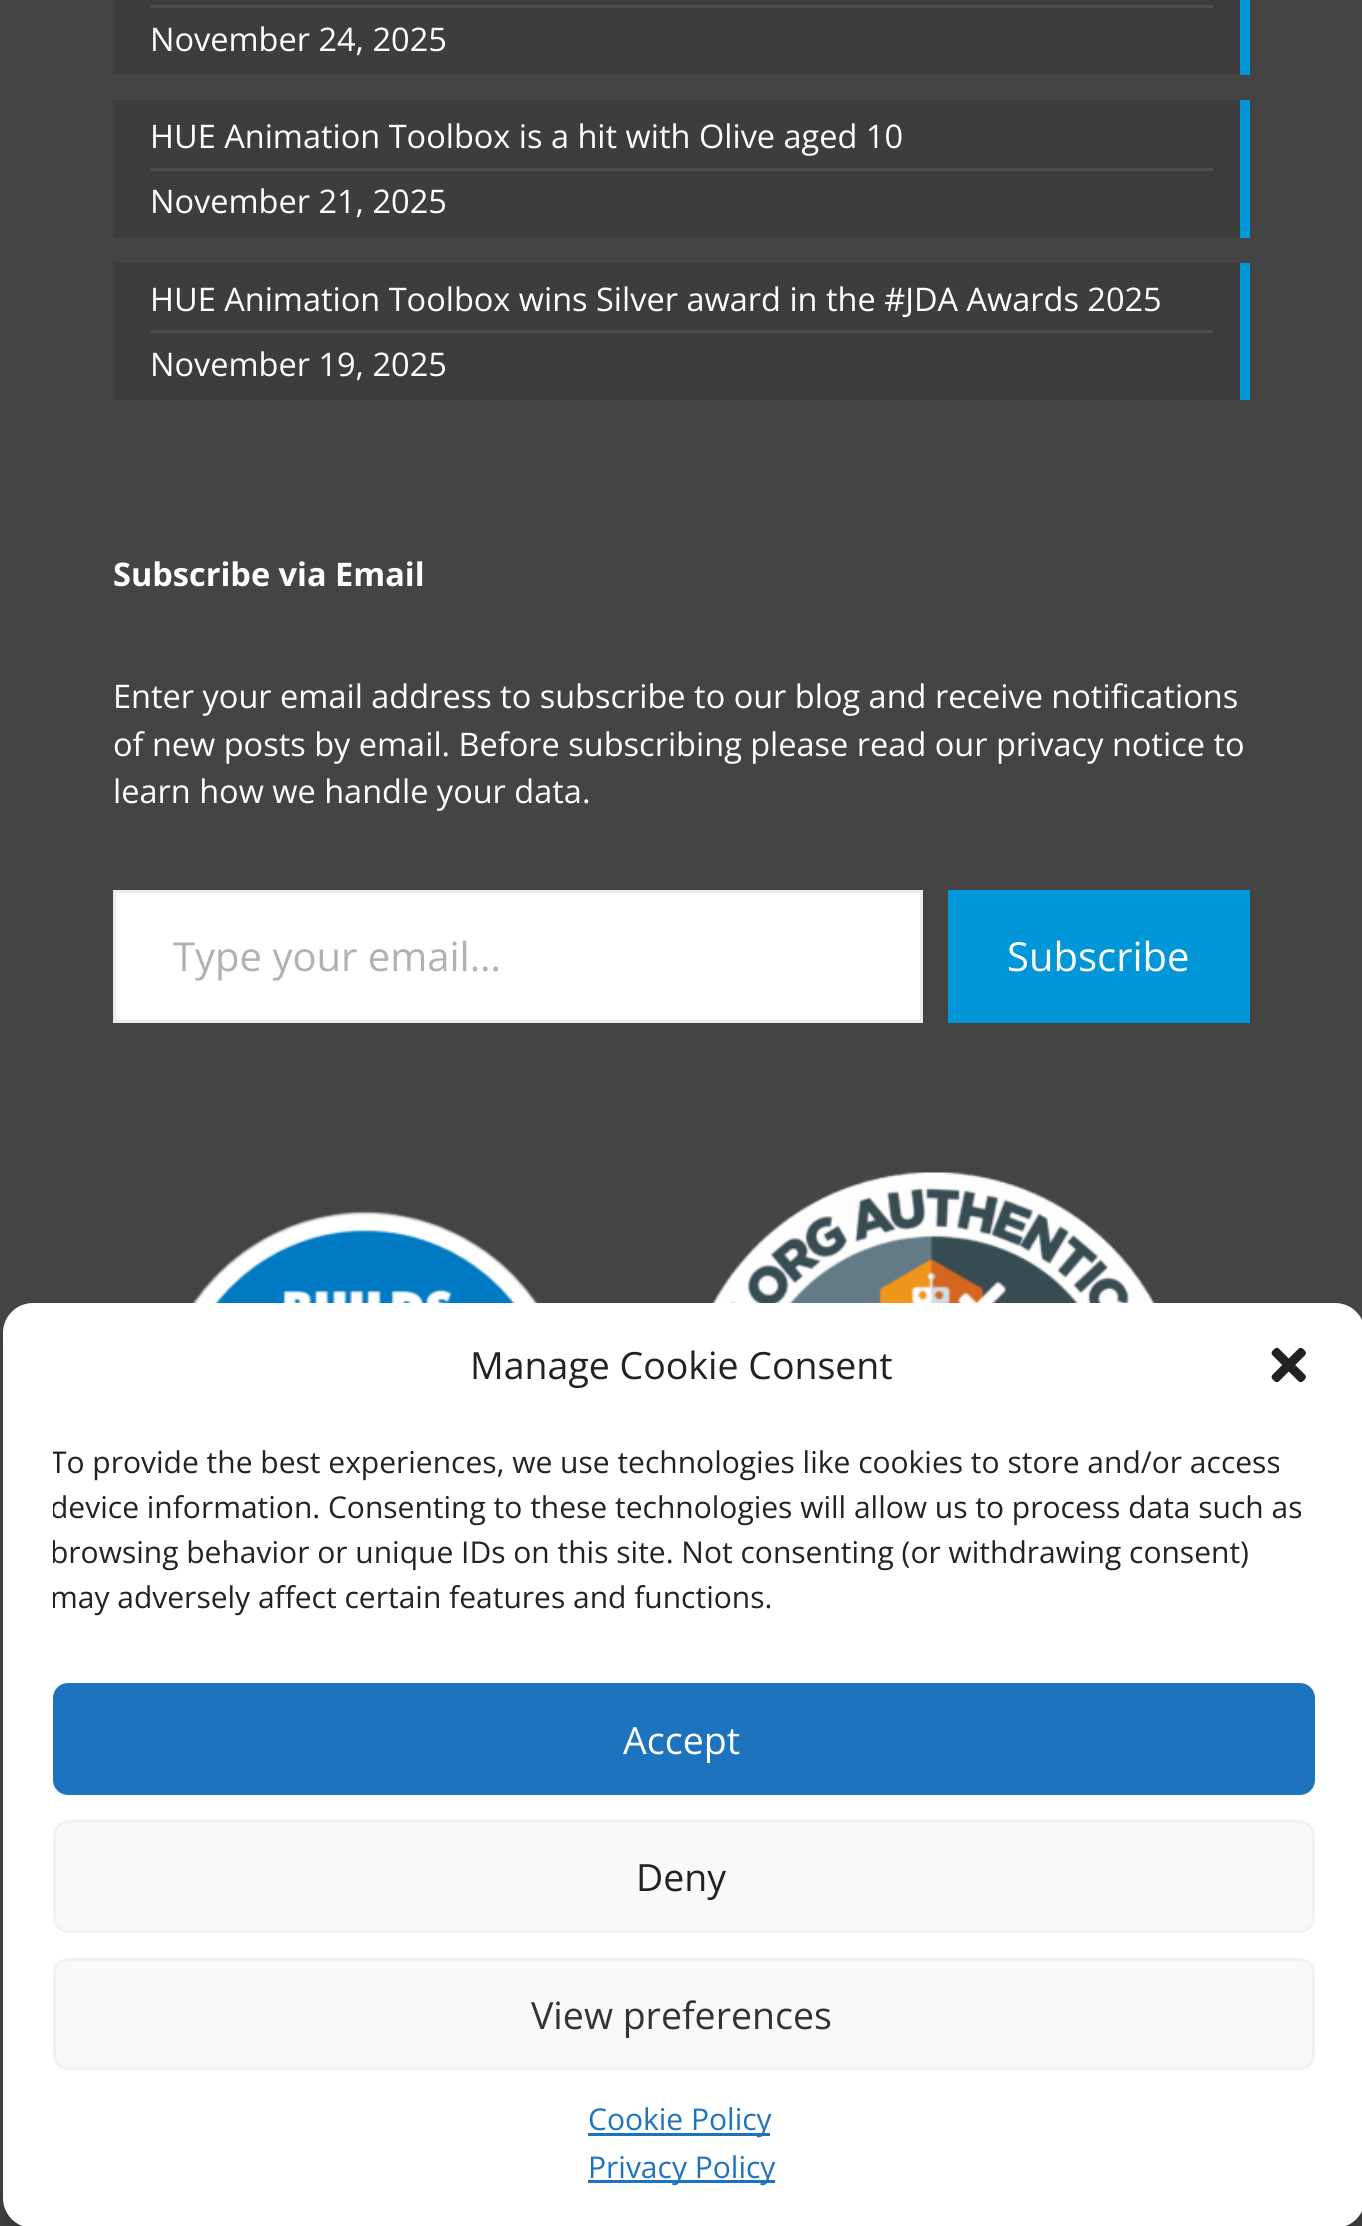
#include <cairo.h>
#include <math.h>
#include <stddef.h>

static cairo_t *c;
static void C(unsigned color){cairo_set_source_rgb(c, (color >> 16) / 255.0, (color >> 8 & 255) / 255.0, (color & 255) / 255.0);}
static void F(const char *family, double size, int italic, int bold){cairo_select_font_face(c, family, italic ? CAIRO_FONT_SLANT_ITALIC : CAIRO_FONT_SLANT_NORMAL,bold ? CAIRO_FONT_WEIGHT_BOLD : CAIRO_FONT_WEIGHT_NORMAL);cairo_set_font_size(c, size);}
static void T(double x, double y, const char *s){cairo_move_to(c, x, y);cairo_show_text(c, s);}
static void R(double x, double y, double w, double h){cairo_rectangle(c, x, y, w, h);cairo_fill(c);}
static void Q(double x, double y, double w, double h, double r){cairo_new_sub_path(c);cairo_arc(c, x + w - r, y + h - r, r, 0, M_PI / 2);cairo_arc(c, x + r, y + h - r, r, M_PI / 2, M_PI);cairo_arc(c, x + r, y + r, r, M_PI, 1.5 * M_PI);cairo_arc(c, x + w - r, y + r, r, 1.5 * M_PI, 2 * M_PI);cairo_close_path(c);}
static void S(double x, double y, double w, double h, double r, double blur, double alpha){cairo_push_group_with_content(c, CAIRO_CONTENT_ALPHA);cairo_set_operator(c, CAIRO_OPERATOR_SOURCE);for (int i = 15; i >= -15 && fmin(w, h) + blur * i / 3 > 0; i -= 2) {double e = blur * i / 6;cairo_set_source_rgba(c, 0, 0, 0, alpha * erfc((i - 1) / 8.5) / 2);Q(x - e, y - e, w + 2 * e, h + 2 * e, fmax(0, fmin(r + e + blur * .6, fmin(w, h) / 2 + e)));cairo_fill(c);}cairo_pattern_t *soft = cairo_pop_group(c);cairo_mask(c, soft);cairo_pattern_destroy(soft);}
static void I(const char *path, double x, double y, double w, double h){cairo_surface_t *image = cairo_image_surface_create_from_png(path);cairo_save(c);cairo_set_source_surface(c, image, x, y);cairo_rectangle(c, x, y, w, h);cairo_fill(c);cairo_restore(c);cairo_surface_destroy(image);}
int main(void) {
cairo_surface_t *surface = cairo_image_surface_create(CAIRO_FORMAT_RGB24, 1362, 2226);
c = cairo_create(surface);
cairo_font_options_t *options = cairo_font_options_create();
cairo_font_options_set_hint_metrics(options, CAIRO_HINT_METRICS_OFF);
cairo_font_options_set_hint_style(options, CAIRO_HINT_STYLE_NONE);
cairo_set_font_options(c, options);
cairo_set_miter_limit(c, 4);
C(0x444444);
cairo_paint(c);
C(0x3d3d3d);
R(113,0,1127,75);
C(0x4d4d4d);
R(150,5,1063,3);
C(0x0096d7);
R(1240,0,10,75);
F("Open Sans",32.5,0,0);
C(0xffffff);
T(150,51,"November 24, 2025");
C(0x3d3d3d);
R(113,100,1127,138);
C(0x4d4d4d);
R(150,168,1063,3);
C(0xffffff);
T(150,148,"HUE Animation Toolbox is a hit with Olive aged 10");
C(0x0096d7);
R(1240,100,10,138);
C(0xffffff);
T(150,213,"November 21, 2025");
C(0x3d3d3d);
R(113,263,1127,137);
C(0x4d4d4d);
R(150,330,1063,3);
C(0xffffff);
T(150,311,"HUE Animation Toolbox wins Silver award in the #JDA Awards 2025");
C(0x0096d7);
R(1240,263,10,137);
C(0xffffff);
T(150,376,"November 19, 2025");
F("Open Sans",32.5,0,1);
T(113,586,"Subscribe via Email");
F("Open Sans",32.5,0,0);
T(113,708,"Enter your email address to subscribe to our blog and receive notifications");
T(113,756,"of new posts by email. Before subscribing please read our privacy notice to");
T(113,803,"learn how we handle your data.");
cairo_rectangle(c,114.5,891.5,807,130);
cairo_fill_preserve(c);
C(0xebebeb);
cairo_set_line_width(c,3);
cairo_stroke(c);
cairo_save(c);
cairo_rectangle(c,173,928,690,55);
cairo_clip(c);
F("Open Sans",40,0,0);
C(0xb1b1b1);
T(173,971,"Type your email…");
cairo_restore(c);
C(0x0096d7);
R(948,890,302,133);
F("Open Sans",40,0,0);
C(0xffffff);
T(1007,971,"Subscribe");
I("1.png",191,1210,348,93);
I("2.png",712,1172,444,131);
cairo_save(c);
cairo_set_fill_rule(c,CAIRO_FILL_RULE_EVEN_ODD);
cairo_new_path(c);
cairo_move_to(c,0,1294);
cairo_line_to(c,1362,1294);
cairo_line_to(c,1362,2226);
cairo_line_to(c,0,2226);
cairo_close_path(c);
cairo_move_to(c,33,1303);
cairo_line_to(c,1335,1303);
cairo_curve_to(c,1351.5,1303,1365,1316.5,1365,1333);
cairo_line_to(c,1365,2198);
cairo_curve_to(c,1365,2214.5,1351.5,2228,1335,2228);
cairo_line_to(c,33,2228);
cairo_curve_to(c,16.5,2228,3,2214.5,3,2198);
cairo_line_to(c,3,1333);
cairo_curve_to(c,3,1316.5,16.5,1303,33,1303);
cairo_close_path(c);
cairo_clip(c);
C(0x000000);
S(3,1318,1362,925,30,7.5,.23);
cairo_restore(c);
Q(3,1303,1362,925,30);
cairo_fill(c);
F("Open Sans",37.5,0,0);
C(0x222222);
T(470,1379,"Manage Cookie Consent");
I("3.png",1271,1347,35,36);
cairo_save(c);
cairo_rectangle(c,53,1440,1262,193);
cairo_clip(c);
F("Open Sans",30,0,0);
T(50,1473,"To provide the best experiences, we use technologies like cookies to store and/or access");
T(50,1518,"device information. Consenting to these technologies will allow us to process data such as");
T(50,1563,"browsing behavior or unique IDs on this site. Not consenting (or withdrawing consent)");
T(50,1608,"may adversely affect certain features and functions.");
cairo_restore(c);
C(0x1e73be);
Q(54.5,1684.5,1259,109,13.5);
cairo_fill_preserve(c);
cairo_stroke(c);
C(0xffffff);
T(623,1754,"Accept");
C(0xf9f9f9);
Q(54.5,1821.5,1259,110,13.5);
cairo_fill_preserve(c);
C(0xf2f2f2);
cairo_stroke(c);
C(0x222222);
T(636,1891,"Deny");
C(0xf9f9f9);
Q(54.5,1959.5,1259,109,13.5);
cairo_fill_preserve(c);
C(0xf2f2f2);
cairo_stroke(c);
C(0x333333);
T(531,2029,"View preferences");
C(0x1e73be);
R(588,2133,182,3);
F("Open Sans",30,0,0);
T(588,2130,"Cookie Policy");
R(588,2180,187,3);
T(588,2178,"Privacy Policy");
cairo_surface_write_to_png(surface, "o.png");
cairo_font_options_destroy(options);
cairo_destroy(c);
cairo_surface_destroy(surface);
return 0;
}
